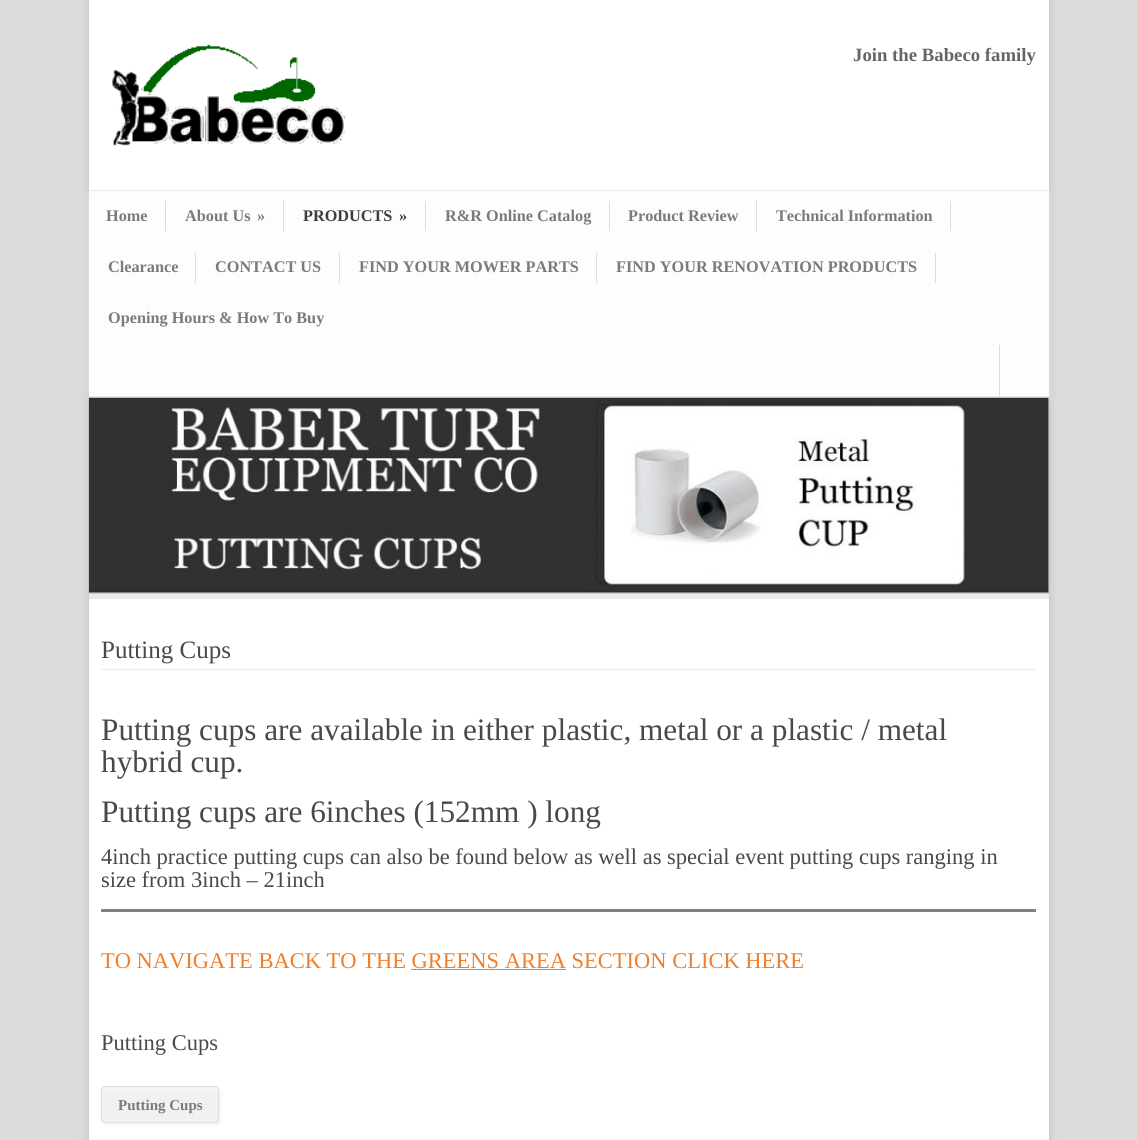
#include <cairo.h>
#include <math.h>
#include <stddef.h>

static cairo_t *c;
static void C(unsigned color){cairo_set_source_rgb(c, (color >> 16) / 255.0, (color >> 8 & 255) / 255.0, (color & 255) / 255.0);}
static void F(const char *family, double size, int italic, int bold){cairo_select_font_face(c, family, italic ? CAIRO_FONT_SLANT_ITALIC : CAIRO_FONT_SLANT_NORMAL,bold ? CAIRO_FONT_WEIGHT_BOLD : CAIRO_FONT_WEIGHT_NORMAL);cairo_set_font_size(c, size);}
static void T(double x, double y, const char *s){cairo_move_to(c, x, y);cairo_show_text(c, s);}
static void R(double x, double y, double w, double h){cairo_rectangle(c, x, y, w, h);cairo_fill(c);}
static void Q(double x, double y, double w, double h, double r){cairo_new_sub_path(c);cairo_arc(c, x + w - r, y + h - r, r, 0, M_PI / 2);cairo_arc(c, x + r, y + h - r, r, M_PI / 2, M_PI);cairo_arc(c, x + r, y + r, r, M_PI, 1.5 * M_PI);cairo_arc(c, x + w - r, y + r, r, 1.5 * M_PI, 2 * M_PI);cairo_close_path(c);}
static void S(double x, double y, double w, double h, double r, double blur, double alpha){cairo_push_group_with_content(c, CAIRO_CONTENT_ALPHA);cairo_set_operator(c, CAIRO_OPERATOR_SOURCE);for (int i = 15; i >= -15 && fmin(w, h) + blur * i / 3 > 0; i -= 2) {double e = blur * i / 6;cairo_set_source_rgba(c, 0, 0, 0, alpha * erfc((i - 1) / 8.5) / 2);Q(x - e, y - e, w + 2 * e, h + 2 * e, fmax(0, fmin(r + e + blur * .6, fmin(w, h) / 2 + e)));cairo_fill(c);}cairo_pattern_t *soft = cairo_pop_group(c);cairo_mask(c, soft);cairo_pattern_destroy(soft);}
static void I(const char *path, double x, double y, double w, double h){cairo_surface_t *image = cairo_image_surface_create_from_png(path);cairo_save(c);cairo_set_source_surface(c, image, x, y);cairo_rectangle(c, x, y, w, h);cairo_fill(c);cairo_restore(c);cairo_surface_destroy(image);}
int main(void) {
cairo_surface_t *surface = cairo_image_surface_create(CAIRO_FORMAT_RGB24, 1137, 1140);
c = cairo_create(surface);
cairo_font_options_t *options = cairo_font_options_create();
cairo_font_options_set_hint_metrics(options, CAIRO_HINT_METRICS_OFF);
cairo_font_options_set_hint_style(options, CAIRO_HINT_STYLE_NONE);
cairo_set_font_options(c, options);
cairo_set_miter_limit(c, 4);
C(0xdddddd);
cairo_paint(c);
C(0xbbbbbb);
S(89,0,960,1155,0,5,1);
C(0xffffff);
R(89,0,960,1140);
I("1.png",112,44,234,102);
F("Liberation Serif",18.75,0,1);
C(0x666666);
T(853,61,"Join the Babeco family");
C(0xf5f5f5);
S(90,193,958,205,0,3,1);
C(0xfdfdfd);
R(90,193,958,205);
C(0xececec);
R(89,190,960,1);
R(89,396,960,1);
C(0xdbdbdb);
R(165,201,1,30);
F("Liberation Serif",16.25,0,1);
C(0x7a7a7a);
T(106,221,"Home");
C(0xdbdbdb);
R(283,201,1,30);
C(0x7a7a7a);
T(185,221,"About Us");
T(257,221,"»");
C(0xdbdbdb);
R(425,201,1,30);
C(0x3d3d3d);
T(303,221,"PRODUCTS");
T(399,221,"»");
C(0xdbdbdb);
R(609,201,1,30);
C(0x7a7a7a);
T(445,221,"R&R Online Catalog");
C(0xdbdbdb);
R(756,201,1,30);
C(0x7a7a7a);
T(628,221,"Product Review");
C(0xdbdbdb);
R(950,201,1,30);
C(0x7a7a7a);
T(776,221,"Technical Information");
C(0xdbdbdb);
R(195,253,1,30);
C(0x7a7a7a);
T(108,272,"Clearance");
C(0xdbdbdb);
R(339,253,1,30);
C(0x7a7a7a);
T(215,272,"CONTACT US");
C(0xdbdbdb);
R(596,253,1,30);
C(0x7a7a7a);
T(359,272,"FIND YOUR MOWER PARTS");
C(0xdbdbdb);
R(935,253,1,30);
C(0x7a7a7a);
T(616,272,"FIND YOUR RENOVATION PRODUCTS");
T(108,323,"Opening Hours & How To Buy");
C(0xdbdbdb);
R(999,345,1,51);
C(0xffffff);
R(91,398,956,2);
I("2.png",88,397,961,196);
I("3.png",89,397,960,2);
C(0xebebeb);
R(89,593,960,6);
cairo_set_source_rgba(c,0,0,0,0.13);
R(89,591,960,3);
C(0xececec);
R(101,669,935,1);
F("Liberation Serif",25,0,0);
C(0x494949);
T(101,658,"Putting Cups");
F("Liberation Serif",31.25,0,0);
T(101,740,"Putting cups are available in either plastic, metal or a plastic / metal");
T(101,772,"hybrid cup.");
T(101,822,"Putting cups are 6inches (152mm ) long");
F("Liberation Serif",22.5,0,0);
T(101,864,"4inch practice putting cups can also be found below as well as special event putting cups ranging in");
T(101,887,"size from 3inch – 21inch");
C(0x808080);
R(101,909,935,3);
C(0xef7f2c);
T(101,968,"TO NAVIGATE BACK TO THE GREENS AREA SECTION CLICK HERE");
R(411,969,155,1);
C(0x494949);
T(101,1050,"Putting Cups");
C(0xececec);
S(103,1088,117,36,4,2,1);
C(0xf1f1f1);
Q(101,1086,118,37,4);
cairo_fill(c);
C(0xf5f5f5);
R(102,1088,116,5);
Q(101.5,1086.5,117,36,3.5);
C(0xdedede);
cairo_set_line_width(c,1);
cairo_stroke(c);
F("Liberation Serif",15,0,1);
C(0x7a7a7a);
T(118,1110,"Putting Cups");
cairo_surface_write_to_png(surface, "o.png");
cairo_font_options_destroy(options);
cairo_destroy(c);
cairo_surface_destroy(surface);
return 0;
}
